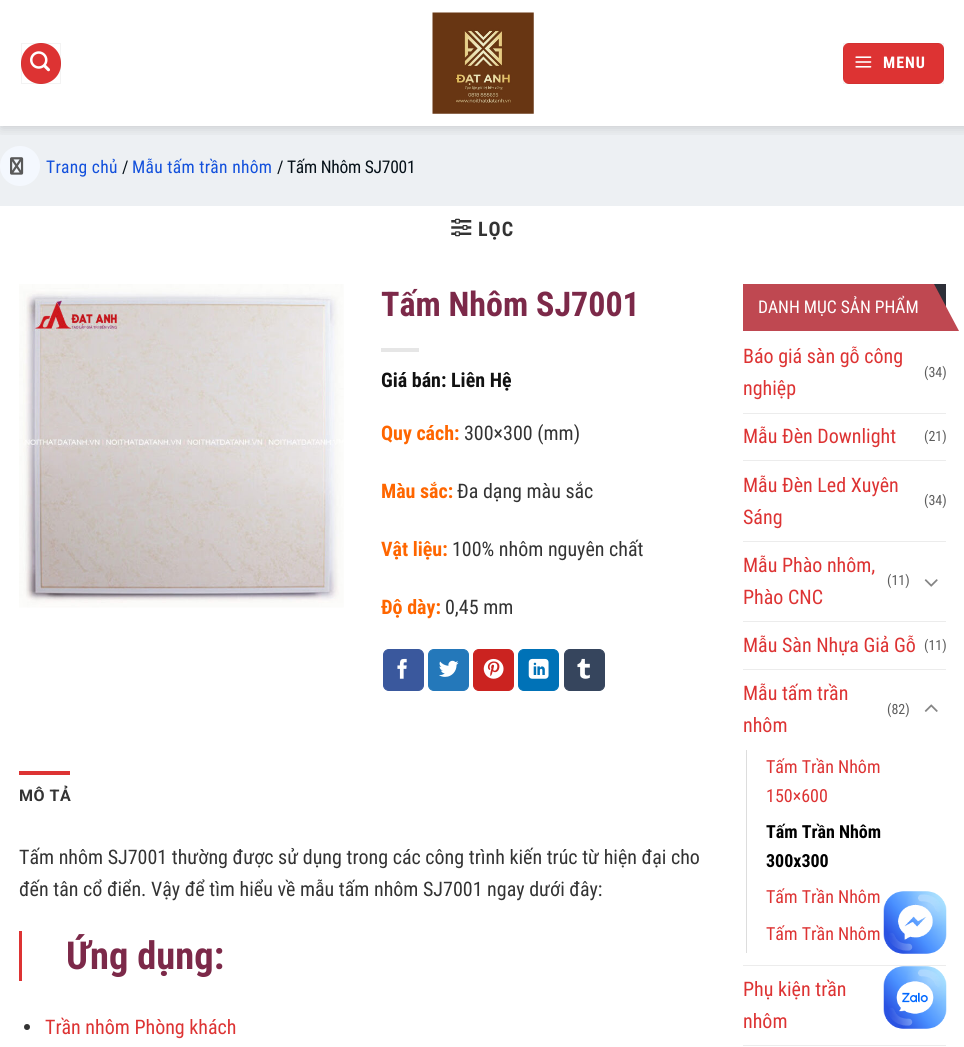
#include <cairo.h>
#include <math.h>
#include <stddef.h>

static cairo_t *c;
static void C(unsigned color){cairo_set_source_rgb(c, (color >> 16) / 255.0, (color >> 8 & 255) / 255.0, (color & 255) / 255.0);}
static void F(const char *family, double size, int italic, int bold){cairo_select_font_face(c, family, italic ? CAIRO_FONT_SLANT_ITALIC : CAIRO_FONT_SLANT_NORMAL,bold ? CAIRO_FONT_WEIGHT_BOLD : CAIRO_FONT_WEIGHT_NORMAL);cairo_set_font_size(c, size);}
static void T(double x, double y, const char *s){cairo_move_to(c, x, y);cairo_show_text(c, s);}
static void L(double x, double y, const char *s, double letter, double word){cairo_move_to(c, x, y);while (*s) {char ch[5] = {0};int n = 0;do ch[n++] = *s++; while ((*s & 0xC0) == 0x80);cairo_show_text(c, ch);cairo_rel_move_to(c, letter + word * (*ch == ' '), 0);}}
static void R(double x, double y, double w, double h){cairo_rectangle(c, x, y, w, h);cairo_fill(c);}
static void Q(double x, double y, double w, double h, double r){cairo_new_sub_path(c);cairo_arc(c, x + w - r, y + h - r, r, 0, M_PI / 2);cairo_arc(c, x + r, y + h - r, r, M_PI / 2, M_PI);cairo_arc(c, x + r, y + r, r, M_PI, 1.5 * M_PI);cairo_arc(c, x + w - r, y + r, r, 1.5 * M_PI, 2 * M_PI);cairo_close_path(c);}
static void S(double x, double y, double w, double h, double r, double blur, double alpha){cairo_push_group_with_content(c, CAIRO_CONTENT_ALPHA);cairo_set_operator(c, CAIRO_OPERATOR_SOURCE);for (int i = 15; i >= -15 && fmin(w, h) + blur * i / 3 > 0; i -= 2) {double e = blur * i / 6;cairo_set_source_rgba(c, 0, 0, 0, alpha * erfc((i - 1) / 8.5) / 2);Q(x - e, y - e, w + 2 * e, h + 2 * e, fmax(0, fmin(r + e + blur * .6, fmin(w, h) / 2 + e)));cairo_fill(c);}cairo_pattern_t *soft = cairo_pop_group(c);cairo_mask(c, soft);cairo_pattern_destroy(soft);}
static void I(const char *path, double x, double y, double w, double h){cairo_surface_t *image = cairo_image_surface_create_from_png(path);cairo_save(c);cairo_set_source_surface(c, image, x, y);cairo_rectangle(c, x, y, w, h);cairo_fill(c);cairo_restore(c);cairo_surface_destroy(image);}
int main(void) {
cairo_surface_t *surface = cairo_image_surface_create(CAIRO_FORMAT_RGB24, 964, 1047);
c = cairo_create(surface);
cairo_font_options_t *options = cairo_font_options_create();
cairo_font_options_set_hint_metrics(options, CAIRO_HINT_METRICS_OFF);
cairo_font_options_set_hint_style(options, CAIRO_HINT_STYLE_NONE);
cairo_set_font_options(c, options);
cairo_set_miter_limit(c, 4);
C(0xffffff);
cairo_paint(c);
C(0xedf0f3);
R(0,126,964,80);
C(0xf4f8fe);
cairo_arc(c,20,166,20,0,2 * M_PI);
cairo_fill(c);
cairo_save(c);
cairo_rectangle(c,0,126,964,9);
cairo_clip(c);
C(0x000000);
S(1,1,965,127,0,6,.15);
cairo_restore(c);
C(0xdd3333);
Q(21,43,40,41,20);
cairo_fill(c);
cairo_rectangle(c,21.5,43.5,39,40);
cairo_set_source_rgba(c,0,0,0,0.05);
cairo_set_line_width(c,1);
cairo_stroke(c);
I("1.png",30,51,20,21);
I("2.png",432,12,102,102);
C(0xdd3333);
Q(843,43,101,41,6);
cairo_fill(c);
cairo_rectangle(c,843.5,43.5,100,40);
cairo_set_source_rgba(c,0,0,0,0.05);
cairo_stroke(c);
I("3.png",855,56,17,12);
F("Roboto Condensed",16,0,1);
C(0xffffff);
L(883,68,"MENU",1,0);
I("4.png",10,157,14,18);
F("Roboto Condensed",17.5,0,0);
C(0x1250dc);
L(46,173,"Trang chủ",.3,0);
C(0x061119);
L(122,173,"/",-.25,0);
C(0x1250dc);
L(132,173,"Mẫu tấm trần nhôm",.3,0);
C(0x061119);
L(277,173,"/ Tấm Nhôm SJ7001",-.25,0);
I("5.png",451,218,21,19);
F("Roboto Condensed",20,0,1);
C(0x333333);
L(478,236,"LỌC",1,0);
I("6.png",19,284,325,324);
F("Roboto Condensed",34,0,1);
C(0x7c2949);
T(381,316,"Tấm Nhôm SJ7001");
C(0xe6e6e6);
R(381,348,38,4);
F("Roboto Condensed",20,0,1);
C(0x111111);
T(381,387,"Giá bán: Liên Hệ");
C(0xff6600);
T(381,440,"Quy cách:");
F("Roboto Condensed",20,0,0);
C(0x333333);
T(464,440,"300×300 (mm)");
F("Roboto Condensed",20,0,1);
C(0xff6600);
T(381,498,"Màu sắc:");
F("Roboto Condensed",20,0,0);
C(0x333333);
T(457,498,"Đa dạng màu sắc");
F("Roboto Condensed",20,0,1);
C(0xff6600);
T(381,556,"Vật liệu:");
F("Roboto Condensed",20,0,0);
C(0x333333);
T(452,556,"100% nhôm nguyên chất");
F("Roboto Condensed",20,0,1);
C(0xff6600);
T(381,614,"Độ dày:");
F("Roboto Condensed",20,0,0);
C(0x333333);
T(445,614,"0,45 mm");
C(0x3a589d);
Q(383.5,649.5,40,41,5.5);
cairo_fill_preserve(c);
cairo_stroke(c);
I("7.png",397,658,10,21);
C(0x2478ba);
Q(428.5,649.5,40,41,5.5);
cairo_fill_preserve(c);
cairo_stroke(c);
I("8.png",439,660,20,17);
C(0xcb2320);
Q(473.5,649.5,40,41,5.5);
cairo_fill_preserve(c);
cairo_stroke(c);
I("9.png",483,658,21,21);
C(0x0072b7);
Q(518.5,649.5,40,41,5.5);
cairo_fill_preserve(c);
cairo_stroke(c);
I("10.png",528,658,21,21);
C(0x36455d);
Q(564.5,649.5,40,41,5.5);
cairo_fill_preserve(c);
cairo_stroke(c);
I("11.png",577,658,13,21);
C(0xdd3333);
R(19,771,51,4);
F("Roboto",16,0,1);
C(0x333333);
L(19,801,"MÔ TẢ",.5,0);
F("Roboto Condensed",20,0,0);
T(19,864,"Tấm nhôm SJ7001 thường được sử dụng trong các công trình kiến trúc từ hiện đại cho");
T(19,896,"đến tân cổ điển. Vậy để tìm hiểu về mẫu tấm nhôm SJ7001 ngay dưới đây:");
C(0xdd3333);
R(19,931,3,50);
F("Roboto Condensed",38.5,0,1);
C(0x7c2949);
T(66,969,"Ứng dụng:");
C(0x333333);
cairo_new_path(c);
cairo_arc(c,27,1027,3,0,2 * M_PI);
cairo_fill(c);
F("Roboto Condensed",20,0,0);
C(0xdd3333);
T(45,1034,"Trần nhôm Phòng khách");
C(0x2d2f38);
R(934,284,12,23);
C(0xbf4851);
R(743,284,191,47);
F("Roboto Condensed",17.5,0,0);
C(0xffffff);
T(758,313,"DANH MỤC SẢN PHẨM");
C(0xbf4851);
cairo_new_path(c);
cairo_move_to(c,959,331);
cairo_line_to(c,934,331);
cairo_line_to(c,934,284);
cairo_close_path(c);
cairo_fill(c);
F("Roboto Condensed",20,0,0);
C(0xdd3333);
T(743,363,"Báo giá sàn gỗ công");
T(743,395,"nghiệp");
F("Roboto Condensed",14,0,0);
C(0x5c5c5c);
T(924,377,"(34)");
C(0xececec);
R(743,413,203,1);
F("Roboto Condensed",20,0,0);
C(0xdd3333);
T(743,443,"Mẫu Đèn Downlight");
F("Roboto Condensed",14,0,0);
C(0x5c5c5c);
T(924,441,"(21)");
C(0xececec);
R(743,460,203,1);
F("Roboto Condensed",20,0,0);
C(0xdd3333);
T(743,492,"Mẫu Đèn Led Xuyên");
T(743,524,"Sáng");
F("Roboto Condensed",14,0,0);
C(0x5c5c5c);
T(924,505,"(34)");
C(0xececec);
R(743,541,203,1);
F("Roboto Condensed",20,0,0);
C(0xdd3333);
T(743,572,"Mẫu Phào nhôm,");
T(743,604,"Phào CNC");
F("Roboto Condensed",14,0,0);
C(0x5c5c5c);
T(887,585,"(11)");
I("12.png",924,579,14,8);
C(0xececec);
R(743,621,203,1);
F("Roboto Condensed",20,0,0);
C(0xdd3333);
T(743,652,"Mẫu Sàn Nhựa Giả Gỗ");
F("Roboto Condensed",14,0,0);
C(0x5c5c5c);
T(924,650,"(11)");
C(0xececec);
R(743,669,203,1);
F("Roboto Condensed",20,0,0);
C(0xdd3333);
T(743,700,"Mẫu tấm trần");
T(743,732,"nhôm");
F("Roboto Condensed",14,0,0);
C(0x5c5c5c);
T(887,714,"(82)");
I("13.png",924,704,14,8);
C(0xdddddd);
R(746,750,1,203);
F("Roboto Condensed",18,0,0);
C(0xdd3333);
T(766,773,"Tấm Trần Nhôm");
T(766,802,"150×600");
F("Roboto Condensed",18,0,1);
C(0x000000);
T(766,838,"Tấm Trần Nhôm");
T(766,867,"300x300");
F("Roboto Condensed",18,0,0);
C(0xdd3333);
T(766,903,"Tấm Trần Nhôm");
T(766,940,"Tấm Trần Nhôm");
C(0xececec);
R(743,965,203,1);
F("Roboto Condensed",20,0,0);
C(0xdd3333);
T(743,996,"Phụ kiện trần");
T(743,1028,"nhôm");
C(0xececec);
R(743,1045,203,1);
I("14.png",883,891,64,63);
I("15.png",883,966,64,63);
cairo_surface_write_to_png(surface, "o.png");
cairo_font_options_destroy(options);
cairo_destroy(c);
cairo_surface_destroy(surface);
return 0;
}
